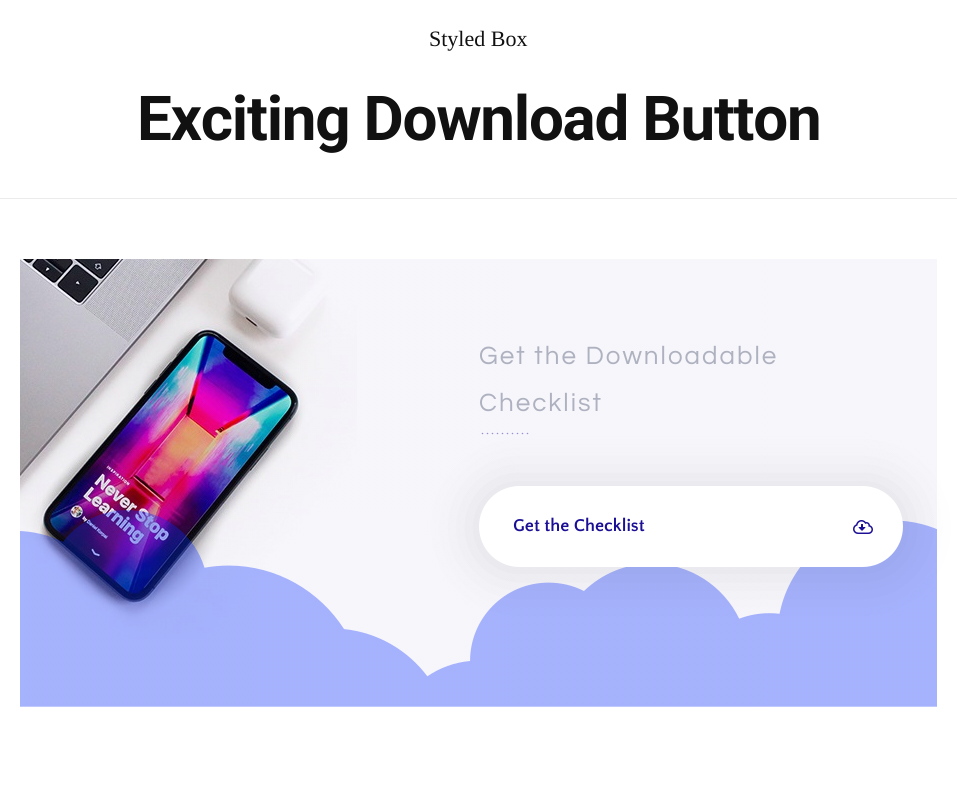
#include <cairo.h>
#include <math.h>
#include <stddef.h>

static cairo_t *c;
static void C(unsigned color){cairo_set_source_rgb(c, (color >> 16) / 255.0, (color >> 8 & 255) / 255.0, (color & 255) / 255.0);}
static void F(const char *family, double size, int italic, int bold){cairo_select_font_face(c, family, italic ? CAIRO_FONT_SLANT_ITALIC : CAIRO_FONT_SLANT_NORMAL,bold ? CAIRO_FONT_WEIGHT_BOLD : CAIRO_FONT_WEIGHT_NORMAL);cairo_set_font_size(c, size);}
static void T(double x, double y, const char *s){cairo_move_to(c, x, y);cairo_show_text(c, s);}
static void L(double x, double y, const char *s, double letter, double word){cairo_move_to(c, x, y);while (*s) {char ch[5] = {0};int n = 0;do ch[n++] = *s++; while ((*s & 0xC0) == 0x80);cairo_show_text(c, ch);cairo_rel_move_to(c, letter + word * (*ch == ' '), 0);}}
static void R(double x, double y, double w, double h){cairo_rectangle(c, x, y, w, h);cairo_fill(c);}
static void Q(double x, double y, double w, double h, double r){cairo_new_sub_path(c);cairo_arc(c, x + w - r, y + h - r, r, 0, M_PI / 2);cairo_arc(c, x + r, y + h - r, r, M_PI / 2, M_PI);cairo_arc(c, x + r, y + r, r, M_PI, 1.5 * M_PI);cairo_arc(c, x + w - r, y + r, r, 1.5 * M_PI, 2 * M_PI);cairo_close_path(c);}
static void S(double x, double y, double w, double h, double r, double blur, double alpha){cairo_push_group_with_content(c, CAIRO_CONTENT_ALPHA);cairo_set_operator(c, CAIRO_OPERATOR_SOURCE);for (int i = 15; i >= -15 && fmin(w, h) + blur * i / 3 > 0; i -= 2) {double e = blur * i / 6;cairo_set_source_rgba(c, 0, 0, 0, alpha * erfc((i - 1) / 8.5) / 2);Q(x - e, y - e, w + 2 * e, h + 2 * e, fmax(0, fmin(r + e + blur * .6, fmin(w, h) / 2 + e)));cairo_fill(c);}cairo_pattern_t *soft = cairo_pop_group(c);cairo_mask(c, soft);cairo_pattern_destroy(soft);}
static void I(const char *path, double x, double y, double w, double h){cairo_surface_t *image = cairo_image_surface_create_from_png(path);cairo_save(c);cairo_set_source_surface(c, image, x, y);cairo_rectangle(c, x, y, w, h);cairo_fill(c);cairo_restore(c);cairo_surface_destroy(image);}
int main(void) {
cairo_surface_t *surface = cairo_image_surface_create(CAIRO_FORMAT_RGB24, 957, 785);
c = cairo_create(surface);
cairo_font_options_t *options = cairo_font_options_create();
cairo_font_options_set_hint_metrics(options, CAIRO_HINT_METRICS_OFF);
cairo_font_options_set_hint_style(options, CAIRO_HINT_STYLE_NONE);
cairo_set_font_options(c, options);
cairo_set_miter_limit(c, 4);
C(0xffffff);
cairo_paint(c);
C(0xebebeb);
R(0,198,957,1);
F("Liberation Serif",22,0,0);
C(0x111111);
T(429,46,"Styled Box");
F("Roboto",61.9,0,1);
L(137,140,"Exciting Download Button",-1.25,0);
I("1.png",20,259,917,448);
I("2.png",20,510,917,197);
F("Questrial",26,0,0);
C(0xaeb1bf);
L(479,364,"Get the Downloadable",2,0);
L(479,411,"Checklist",2,0);
I("3.png",481,432,48,3);
C(0x000000);
S(477,485,428,85,42.5,25,.1);
C(0xffffff);
Q(479,486,424,81,40.5);
cairo_fill(c);
F("Quattrocento Sans",18,0,1);
C(0x1b0f95);
T(513,531,"Get the Checklist");
I("4.png",853,520,20,14);
cairo_surface_write_to_png(surface, "o.png");
cairo_font_options_destroy(options);
cairo_destroy(c);
cairo_surface_destroy(surface);
return 0;
}
